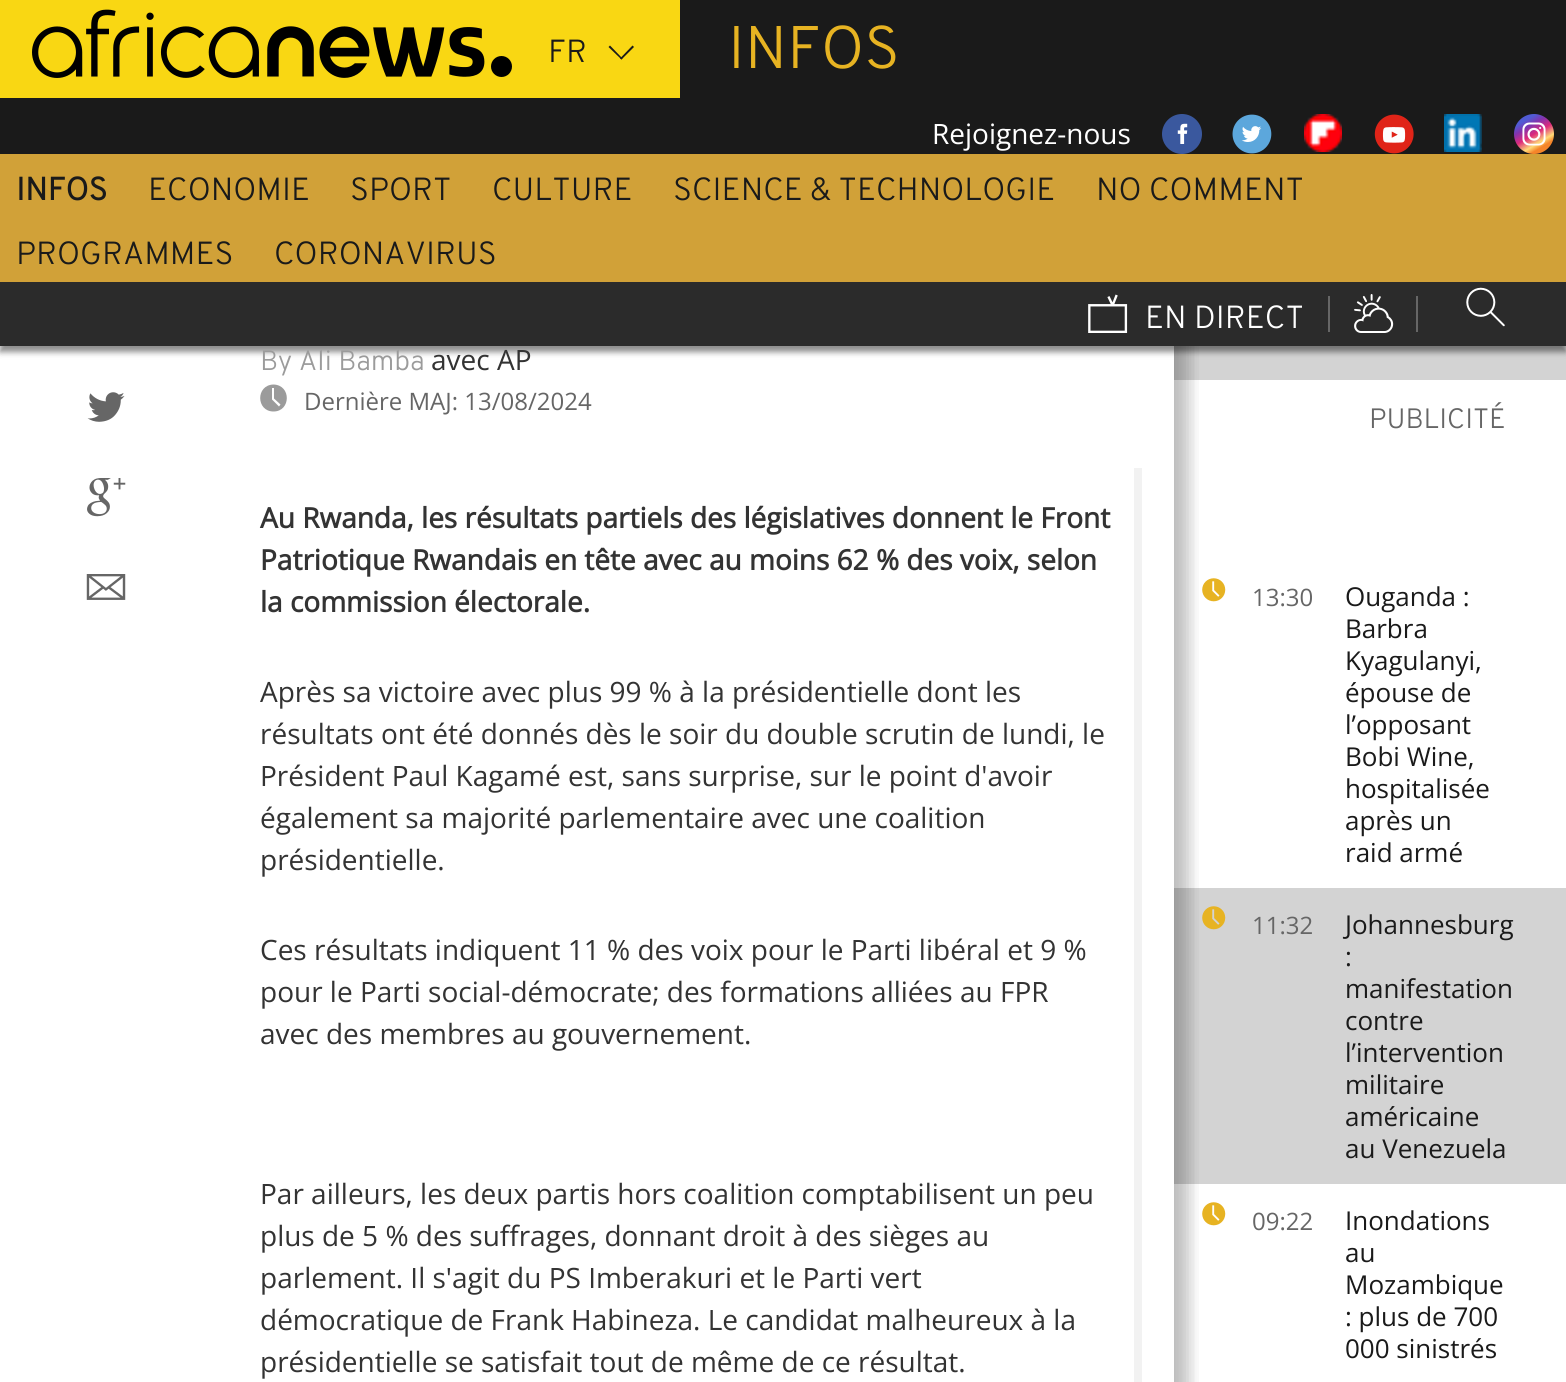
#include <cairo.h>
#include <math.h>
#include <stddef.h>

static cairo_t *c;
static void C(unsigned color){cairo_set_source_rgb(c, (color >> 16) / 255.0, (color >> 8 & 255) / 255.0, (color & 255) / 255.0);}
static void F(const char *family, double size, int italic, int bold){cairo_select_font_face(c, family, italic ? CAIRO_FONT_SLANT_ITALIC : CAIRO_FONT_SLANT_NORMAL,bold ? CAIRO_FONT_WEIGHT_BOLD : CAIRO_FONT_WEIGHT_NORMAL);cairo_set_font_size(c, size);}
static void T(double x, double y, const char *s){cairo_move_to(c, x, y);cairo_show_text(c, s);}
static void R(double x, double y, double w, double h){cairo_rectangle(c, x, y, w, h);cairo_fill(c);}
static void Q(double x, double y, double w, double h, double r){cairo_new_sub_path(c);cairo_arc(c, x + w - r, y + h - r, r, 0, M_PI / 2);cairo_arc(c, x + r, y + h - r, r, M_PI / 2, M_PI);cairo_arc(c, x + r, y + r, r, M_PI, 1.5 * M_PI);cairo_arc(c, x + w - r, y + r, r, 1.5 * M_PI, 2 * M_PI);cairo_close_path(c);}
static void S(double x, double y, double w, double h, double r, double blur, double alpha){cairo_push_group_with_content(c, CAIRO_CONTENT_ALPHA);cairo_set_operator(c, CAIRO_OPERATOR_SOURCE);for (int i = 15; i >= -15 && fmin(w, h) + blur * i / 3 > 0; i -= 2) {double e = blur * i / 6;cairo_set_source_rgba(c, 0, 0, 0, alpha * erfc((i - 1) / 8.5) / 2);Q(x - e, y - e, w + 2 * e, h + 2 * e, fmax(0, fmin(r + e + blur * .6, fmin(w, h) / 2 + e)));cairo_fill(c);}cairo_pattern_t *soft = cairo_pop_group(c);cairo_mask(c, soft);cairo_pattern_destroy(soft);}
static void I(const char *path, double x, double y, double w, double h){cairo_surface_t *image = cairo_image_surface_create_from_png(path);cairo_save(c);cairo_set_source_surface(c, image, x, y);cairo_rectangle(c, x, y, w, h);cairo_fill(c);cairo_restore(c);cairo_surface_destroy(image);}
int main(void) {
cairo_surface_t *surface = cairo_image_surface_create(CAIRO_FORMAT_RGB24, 1566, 1382);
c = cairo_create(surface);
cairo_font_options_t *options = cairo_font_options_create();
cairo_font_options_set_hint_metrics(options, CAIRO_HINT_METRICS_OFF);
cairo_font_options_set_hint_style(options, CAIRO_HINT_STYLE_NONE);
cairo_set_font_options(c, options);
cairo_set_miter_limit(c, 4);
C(0xffffff);
cairo_paint(c);
C(0xd3d3d3);
R(1174,346,392,34);
I("14.png",1202,578,24,24);
R(1174,888,392,296);
I("15.png",1202,906,24,24);
I("14.png",1202,1202,24,24);
cairo_save(c);
cairo_rectangle(c,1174,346,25,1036);
cairo_clip(c);
C(0x000000);
S(56,-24,1134,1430,0,8,.15);
cairo_restore(c);
cairo_save(c);
cairo_rectangle(c,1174,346,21,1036);
cairo_clip(c);
C(0x000000);
S(10,-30,1174,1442,0,10,.15);
cairo_restore(c);
C(0x1a1a1a);
R(0,0,1566,154);
C(0xf9d713);
R(0,0,680,98);
I("1.png",32,9,480,69);
F("Overpass Light",32,0,0);
C(0x1a1a1a);
T(548,62,"FR");
cairo_new_path(c);
cairo_move_to(c,620,58.5);
cairo_line_to(c,632.5,45.5);
cairo_line_to(c,634,47);
cairo_line_to(c,621.5,59.5);
cairo_close_path(c);
cairo_fill(c);
cairo_new_path(c);
cairo_move_to(c,608.5,47);
cairo_line_to(c,610,45.5);
cairo_line_to(c,622.5,58.5);
cairo_line_to(c,621.5,59.5);
cairo_close_path(c);
cairo_fill(c);
F("Overpass Light",60,0,0);
C(0xe7b322);
T(728,68,"INFOS");
F("Open Sans",28,0,0);
C(0xffffff);
T(932,144,"Rejoignez-nous");
I("4.png",1304,114,38,38);
I("6.png",1444,114,38,38);
C(0x000000);
S(0,160,1566,192,0,3,.45);
I("2.png",1162,114,40,40);
I("3.png",1232,114,40,40);
I("5.png",1374,114,40,40);
I("7.png",1514,114,40,40);
C(0xd1a138);
R(0,154,1566,128);
F("Overpass",32,0,1);
C(0x1a1a1a);
T(16,200,"INFOS");
F("Overpass Light",32,0,0);
T(148,200,"ECONOMIE");
T(350,200,"SPORT");
T(492,200,"CULTURE");
T(673,200,"SCIENCE & TECHNOLOGIE");
T(1096,200,"NO COMMENT");
T(16,264,"PROGRAMMES");
T(274,264,"CORONAVIRUS");
C(0x2b2b2b);
R(0,282,1566,64);
I("8.png",1088,294,40,39);
C(0xffffff);
T(1145,328,"EN DIRECT");
C(0x666666);
R(1328,296,2,36);
I("9.png",1354,294,40,39);
R(1416,296,2,36);
I("10.png",1466,287,39,40);
I("11.png",87,392,38,30);
I("12.png",87,478,39,39);
I("13.png",86,574,40,26);
F("Overpass Light",28,0,0);
C(0x9b9b9b);
T(260,370,"By Ali Bamba");
F("Open Sans",28,0,0);
C(0x333333);
T(431,370,"avec AP");
C(0x9b9b9b);
cairo_new_path(c);
cairo_move_to(c,273.5,384.5);
cairo_curve_to(c,255.5,385,256,411.5,273.5,411.5);
cairo_curve_to(c,291,411.5,291.5,385,273.5,384.5);
cairo_close_path(c);
cairo_move_to(c,279,406.5);
cairo_line_to(c,272,399.5);
cairo_line_to(c,272,388);
cairo_line_to(c,274,388);
cairo_line_to(c,274,398.5);
cairo_line_to(c,280.5,404.5);
cairo_close_path(c);
cairo_fill(c);
F("Open Sans",24,0,0);
C(0x666666);
T(304,410,"Dernière MAJ: 13/08/2024");
C(0xf2f2f2);
R(1134,468,8,914);
F("Open Sans",28,0,1);
C(0x333333);
T(260,528,"Au Rwanda, les résultats partiels des législatives donnent le Front");
T(260,570,"Patriotique Rwandais en tête avec au moins 62 % des voix, selon");
T(260,612,"la commission électorale.");
F("Open Sans",28,0,0);
T(260,702,"Après sa victoire avec plus 99 % à la présidentielle dont les");
T(260,744,"résultats ont été donnés dès le soir du double scrutin de lundi, le");
T(260,786,"Président Paul Kagamé est, sans surprise, sur le point d'avoir");
T(260,828,"également sa majorité parlementaire avec une coalition");
T(260,870,"présidentielle.");
T(260,960,"Ces résultats indiquent 11 % des voix pour le Parti libéral et 9 %");
T(260,1002,"pour le Parti social-démocrate; des formations alliées au FPR");
T(260,1044,"avec des membres au gouvernement.");
T(260,1204,"Par ailleurs, les deux partis hors coalition comptabilisent un peu");
T(260,1246,"plus de 5 % des suffrages, donnant droit à des sièges au");
T(260,1288,"parlement. Il s'agit du PS Imberakuri et le Parti vert");
T(260,1330,"démocratique de Frank Habineza. Le candidat malheureux à la");
T(260,1372,"présidentielle se satisfait tout de même de ce résultat.");
F("Overpass Light",28,0,0);
C(0x666666);
T(1369,428,"PUBLICITÉ");
F("Open Sans",24,0,0);
T(1252,606,"13:30");
F("Open Sans",26,0,0);
C(0x1a1a1a);
T(1345,606,"Ouganda :");
T(1345,638,"Barbra");
T(1345,670,"Kyagulanyi,");
T(1345,702,"épouse de");
T(1345,734,"l’opposant");
T(1345,766,"Bobi Wine,");
T(1345,798,"hospitalisée");
T(1345,830,"après un");
T(1345,862,"raid armé");
F("Open Sans",24,0,0);
C(0x666666);
T(1252,934,"11:32");
F("Open Sans",26,0,0);
C(0x1a1a1a);
T(1345,934,"Johannesburg");
T(1345,966,":");
T(1345,998,"manifestation");
T(1345,1030,"contre");
T(1345,1062,"l’intervention");
T(1345,1094,"militaire");
T(1345,1126,"américaine");
T(1345,1158,"au Venezuela");
F("Open Sans",24,0,0);
C(0x666666);
T(1252,1230,"09:22");
F("Open Sans",26,0,0);
C(0x1a1a1a);
T(1345,1230,"Inondations");
T(1345,1262,"au");
T(1345,1294,"Mozambique");
T(1345,1326,": plus de 700");
T(1345,1358,"000 sinistrés");
cairo_surface_write_to_png(surface, "o.png");
cairo_font_options_destroy(options);
cairo_destroy(c);
cairo_surface_destroy(surface);
return 0;
}
